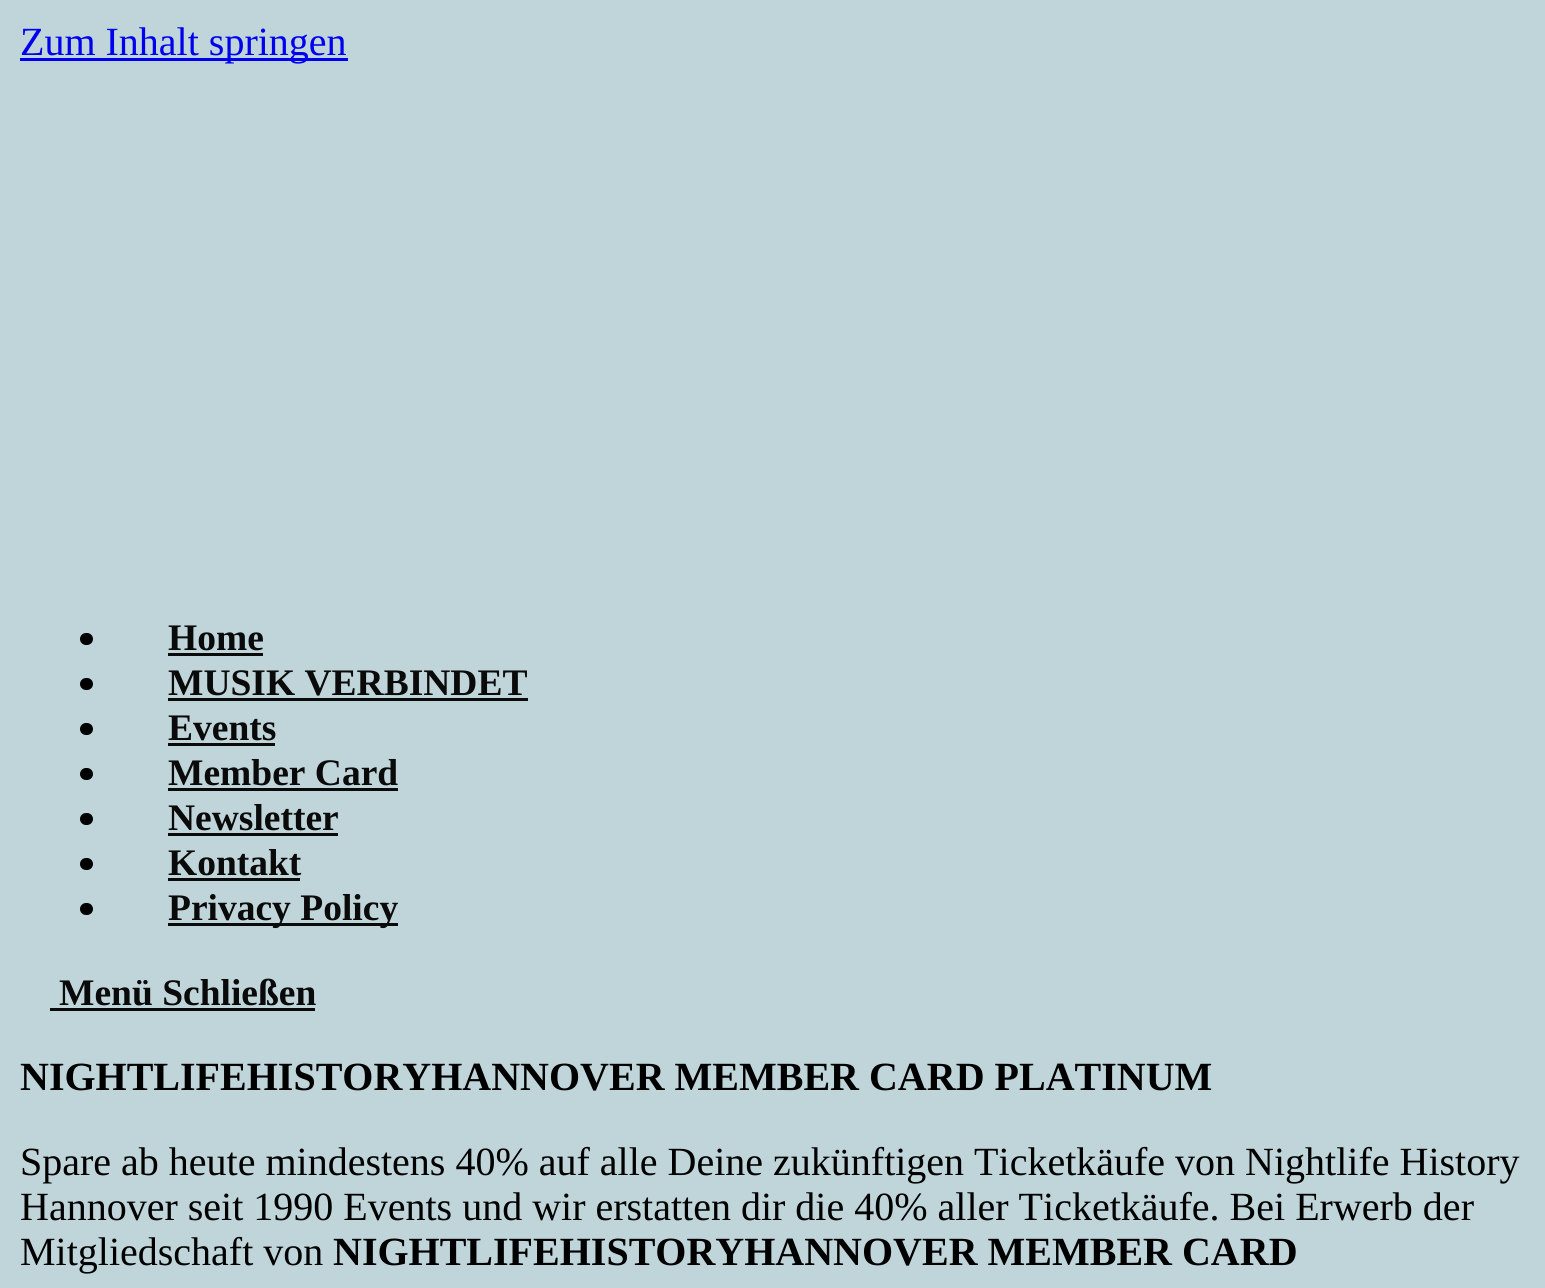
#include <cairo.h>
#include <math.h>
#include <stddef.h>

static cairo_t *c;
static void C(unsigned color){cairo_set_source_rgb(c, (color >> 16) / 255.0, (color >> 8 & 255) / 255.0, (color & 255) / 255.0);}
static void F(const char *family, double size, int italic, int bold){cairo_select_font_face(c, family, italic ? CAIRO_FONT_SLANT_ITALIC : CAIRO_FONT_SLANT_NORMAL,bold ? CAIRO_FONT_WEIGHT_BOLD : CAIRO_FONT_WEIGHT_NORMAL);cairo_set_font_size(c, size);}
static void T(double x, double y, const char *s){cairo_move_to(c, x, y);cairo_show_text(c, s);}
static void R(double x, double y, double w, double h){cairo_rectangle(c, x, y, w, h);cairo_fill(c);}
static void Q(double x, double y, double w, double h, double r){cairo_new_sub_path(c);cairo_arc(c, x + w - r, y + h - r, r, 0, M_PI / 2);cairo_arc(c, x + r, y + h - r, r, M_PI / 2, M_PI);cairo_arc(c, x + r, y + r, r, M_PI, 1.5 * M_PI);cairo_arc(c, x + w - r, y + r, r, 1.5 * M_PI, 2 * M_PI);cairo_close_path(c);}
int main(void) {
cairo_surface_t *surface = cairo_image_surface_create(CAIRO_FORMAT_RGB24, 1545, 1288);
c = cairo_create(surface);
cairo_font_options_t *options = cairo_font_options_create();
cairo_font_options_set_hint_metrics(options, CAIRO_HINT_METRICS_OFF);
cairo_font_options_set_hint_style(options, CAIRO_HINT_STYLE_NONE);
cairo_set_font_options(c, options);
cairo_set_miter_limit(c, 4);
C(0xbfd5d9);
cairo_paint(c);
C(0x0000ee);
R(20,58,328,3);
F("Liberation Serif",40,0,0);
T(20,55,"Zum Inhalt springen");
C(0x000000);
Q(80,633,13,12,6);
cairo_fill(c);
F("Liberation Serif",37.5,0,1);
C(0x0a0a0a);
T(168,650,"Home");
R(168,653,95,3);
C(0x000000);
Q(80,678,13,12,6);
cairo_fill(c);
C(0x0a0a0a);
T(168,695,"MUSIK VERBINDET");
R(168,698,360,3);
C(0x000000);
Q(80,723,13,12,6);
cairo_fill(c);
C(0x0a0a0a);
T(168,740,"Events");
R(168,743,107,3);
C(0x000000);
Q(80,768,13,12,6);
cairo_fill(c);
C(0x0a0a0a);
T(168,785,"Member Card");
R(168,788,230,3);
C(0x000000);
Q(80,813,13,12,6);
cairo_fill(c);
C(0x0a0a0a);
T(168,830,"Newsletter");
R(168,833,170,3);
C(0x000000);
Q(80,858,13,12,6);
cairo_fill(c);
C(0x0a0a0a);
T(168,875,"Kontakt");
R(168,878,132,3);
C(0x000000);
Q(80,903,13,12,6);
cairo_fill(c);
C(0x0a0a0a);
R(168,923,230,3);
T(168,920,"Privacy Policy");
T(59,1005,"Menü Schließen");
R(50,1008,265,3);
F("Liberation Serif",40,0,1);
C(0x000000);
T(20,1090,"NIGHTLIFEHISTORYHANNOVER MEMBER CARD PLATINUM");
F("Liberation Serif",40,0,0);
T(20,1175,"Spare ab heute mindestens 40% auf alle Deine zukünftigen Ticketkäufe von Nightlife History");
T(20,1220,"Hannover seit 1990 Events und wir erstatten dir die 40% aller Ticketkäufe. Bei Erwerb der");
T(20,1265,"Mitgliedschaft von");
F("Liberation Serif",40,0,1);
T(333,1265,"NIGHTLIFEHISTORYHANNOVER MEMBER CARD");
cairo_surface_write_to_png(surface, "o.png");
cairo_font_options_destroy(options);
cairo_destroy(c);
cairo_surface_destroy(surface);
return 0;
}
